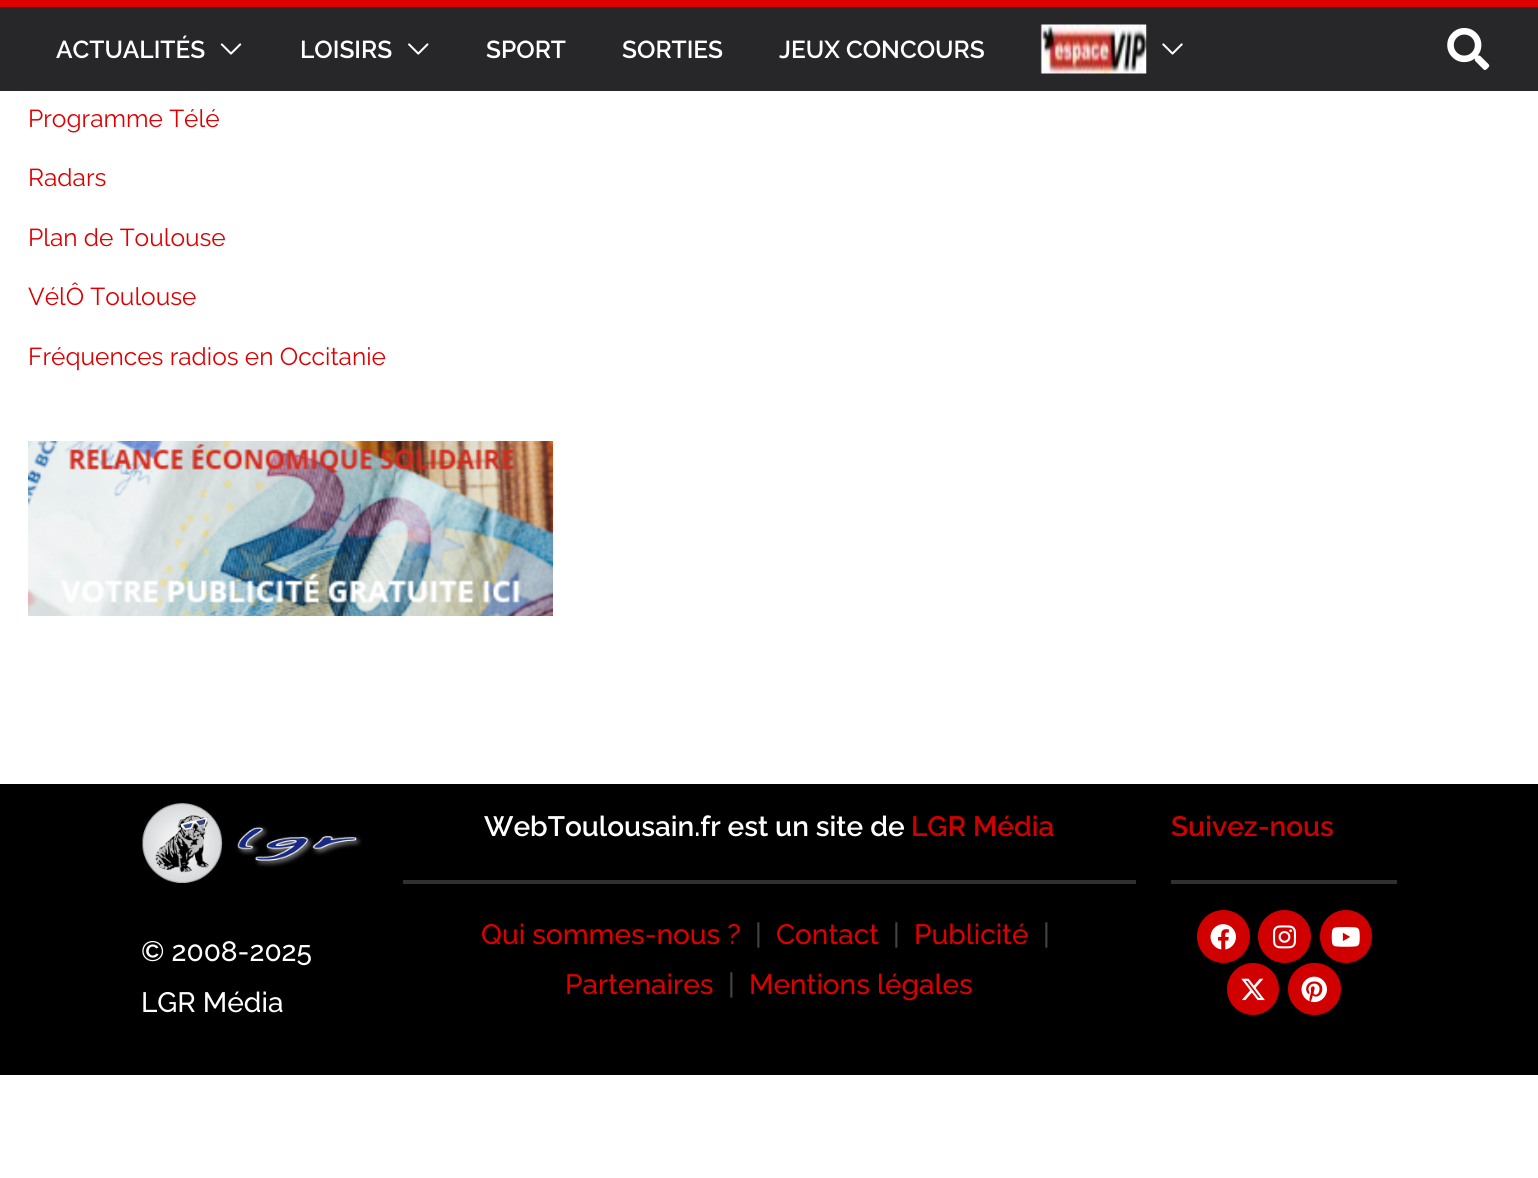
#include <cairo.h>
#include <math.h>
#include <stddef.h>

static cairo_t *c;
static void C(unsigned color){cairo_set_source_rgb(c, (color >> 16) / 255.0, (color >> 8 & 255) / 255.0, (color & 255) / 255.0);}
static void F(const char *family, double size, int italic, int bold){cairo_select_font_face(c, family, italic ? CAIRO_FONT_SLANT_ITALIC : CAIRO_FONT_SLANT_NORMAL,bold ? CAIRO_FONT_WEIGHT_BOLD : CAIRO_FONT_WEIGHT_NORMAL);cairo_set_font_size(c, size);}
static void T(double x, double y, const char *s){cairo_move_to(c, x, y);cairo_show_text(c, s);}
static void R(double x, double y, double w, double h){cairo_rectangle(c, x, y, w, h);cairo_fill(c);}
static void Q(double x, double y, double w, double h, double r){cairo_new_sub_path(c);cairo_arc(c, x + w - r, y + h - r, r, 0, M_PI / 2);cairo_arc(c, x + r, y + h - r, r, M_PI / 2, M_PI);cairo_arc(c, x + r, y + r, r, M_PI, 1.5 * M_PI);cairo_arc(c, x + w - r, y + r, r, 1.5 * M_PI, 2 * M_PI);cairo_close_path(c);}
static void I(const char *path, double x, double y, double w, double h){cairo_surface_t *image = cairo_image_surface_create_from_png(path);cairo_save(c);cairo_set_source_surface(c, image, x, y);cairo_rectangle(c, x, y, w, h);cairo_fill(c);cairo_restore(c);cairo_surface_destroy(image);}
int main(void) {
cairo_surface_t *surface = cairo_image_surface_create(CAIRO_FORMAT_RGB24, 1538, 1178);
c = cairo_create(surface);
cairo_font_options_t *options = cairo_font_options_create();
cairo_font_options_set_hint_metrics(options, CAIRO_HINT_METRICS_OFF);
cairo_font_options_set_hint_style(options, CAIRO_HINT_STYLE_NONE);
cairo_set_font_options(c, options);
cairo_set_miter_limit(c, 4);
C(0xffffff);
cairo_paint(c);
C(0x27272a);
R(0,7,1538,84);
C(0xdd0000);
R(0,0,1538,7);
F("Raleway SemiBold",24.5,0,0);
C(0xffffff);
T(56,58,"ACTUALITÉS");
I("1.png",220,43,22,12);
T(300,58,"LOISIRS");
I("2.png",408,43,21,12);
T(486,58,"SPORT");
T(622,58,"SORTIES");
T(779,58,"JEUX CONCOURS");
I("3.png",1040,24,107,50);
I("4.png",1162,43,21,12);
I("5.png",1447,28,43,42);
F("Raleway",24.5,0,0);
C(0xdd0000);
T(28,127,"Programme Télé");
T(28,186,"Radars");
T(28,246,"Plan de Toulouse");
T(28,305,"VélÔ Toulouse");
T(28,365,"Fréquences radios en Occitanie");
I("6.png",28,441,525,175);
C(0x000000);
R(0,784,1538,291);
F("Raleway SemiBold",28,0,0);
C(0xffffff);
T(484,836,"WebToulousain.fr est un site de");
C(0xd00000);
T(911,836,"LGR Média");
C(0x303030);
R(403,880,733,4);
F("Raleway Medium",28,0,0);
C(0xdd0000);
T(481,944,"Qui sommes-nous ?");
C(0x444444);
T(755,944,"|");
C(0xdd0000);
T(776,944,"Contact");
C(0x444444);
T(893,944,"|");
C(0xdd0000);
T(914,944,"Publicité");
C(0x444444);
T(1043,944,"|");
C(0xdd0000);
T(565,994,"Partenaires");
C(0x444444);
T(728,994,"|");
C(0xdd0000);
T(749,994,"Mentions légales");
F("Raleway SemiBold",28,0,0);
C(0xd00000);
T(1171,836,"Suivez-nous");
C(0x303030);
R(1171,880,226,4);
C(0xd00000);
cairo_new_path(c);
cairo_arc(c,1223.5,936.5,26.5,0,2 * M_PI);
cairo_fill(c);
I("7.png",1210,924,26,26);
cairo_arc(c,1284.5,936.5,26.5,0,2 * M_PI);
cairo_fill(c);
I("8.png",1273,925,24,24);
Q(1320,910,52,53,26);
cairo_fill(c);
I("9.png",1331,927,29,20);
cairo_arc(c,1253,989,26,0,2 * M_PI);
cairo_fill(c);
I("10.png",1241,978,24,23);
Q(1288,963,53,52,26);
cairo_fill(c);
I("11.png",1301,976,26,27);
I("12.png",142,803,220,80);
F("Raleway Medium",28,0,0);
C(0xffffff);
T(141,961,"© 2008-2025");
T(141,1012,"LGR Média");
cairo_surface_write_to_png(surface, "o.png");
cairo_font_options_destroy(options);
cairo_destroy(c);
cairo_surface_destroy(surface);
return 0;
}
